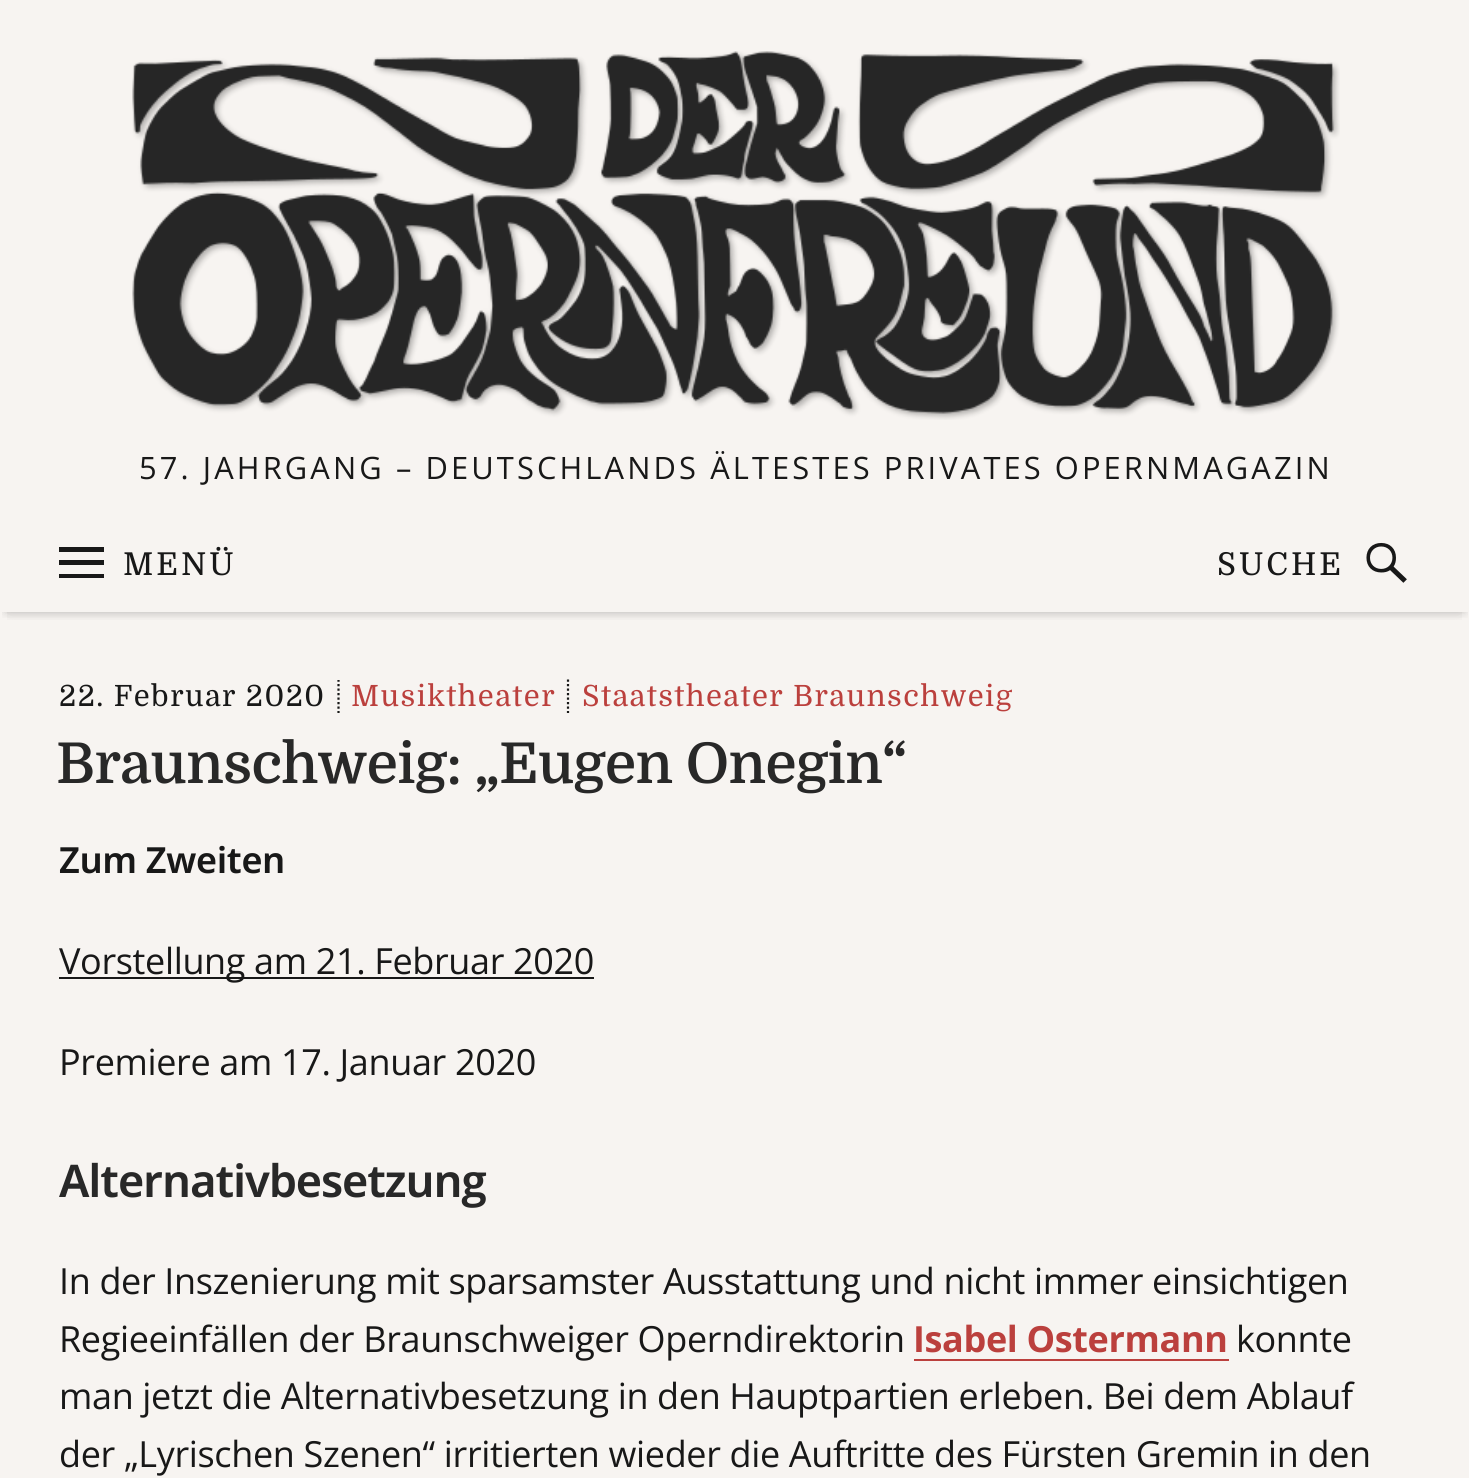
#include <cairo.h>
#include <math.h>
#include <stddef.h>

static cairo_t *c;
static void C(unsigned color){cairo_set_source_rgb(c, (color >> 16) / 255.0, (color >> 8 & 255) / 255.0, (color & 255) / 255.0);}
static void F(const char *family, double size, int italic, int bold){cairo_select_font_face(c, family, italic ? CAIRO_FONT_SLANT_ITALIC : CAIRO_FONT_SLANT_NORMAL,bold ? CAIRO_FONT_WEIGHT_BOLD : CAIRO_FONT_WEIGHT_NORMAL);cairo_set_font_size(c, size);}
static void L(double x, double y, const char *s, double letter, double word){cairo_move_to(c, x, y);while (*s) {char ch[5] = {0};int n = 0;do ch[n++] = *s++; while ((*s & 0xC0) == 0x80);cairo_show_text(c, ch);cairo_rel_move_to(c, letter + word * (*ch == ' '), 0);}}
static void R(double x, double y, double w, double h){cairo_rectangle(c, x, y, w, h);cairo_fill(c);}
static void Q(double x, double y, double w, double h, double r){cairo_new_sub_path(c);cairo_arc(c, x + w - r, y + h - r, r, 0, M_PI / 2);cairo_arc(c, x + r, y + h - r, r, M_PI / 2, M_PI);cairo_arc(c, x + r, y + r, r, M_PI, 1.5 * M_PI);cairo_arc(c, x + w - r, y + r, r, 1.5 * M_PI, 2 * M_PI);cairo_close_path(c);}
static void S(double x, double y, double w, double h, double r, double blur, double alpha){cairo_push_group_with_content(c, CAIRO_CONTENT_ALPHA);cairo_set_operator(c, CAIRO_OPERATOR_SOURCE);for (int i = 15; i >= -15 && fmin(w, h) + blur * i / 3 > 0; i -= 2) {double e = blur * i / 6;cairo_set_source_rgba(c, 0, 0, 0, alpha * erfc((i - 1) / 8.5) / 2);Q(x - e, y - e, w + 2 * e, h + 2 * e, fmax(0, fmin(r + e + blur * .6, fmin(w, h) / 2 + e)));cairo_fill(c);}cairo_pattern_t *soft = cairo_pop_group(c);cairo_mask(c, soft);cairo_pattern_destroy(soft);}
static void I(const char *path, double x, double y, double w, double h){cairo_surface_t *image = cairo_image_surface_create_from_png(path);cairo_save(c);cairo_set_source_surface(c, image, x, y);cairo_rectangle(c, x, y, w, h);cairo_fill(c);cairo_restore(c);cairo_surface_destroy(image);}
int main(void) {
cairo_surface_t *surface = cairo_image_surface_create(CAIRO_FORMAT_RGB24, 1469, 1478);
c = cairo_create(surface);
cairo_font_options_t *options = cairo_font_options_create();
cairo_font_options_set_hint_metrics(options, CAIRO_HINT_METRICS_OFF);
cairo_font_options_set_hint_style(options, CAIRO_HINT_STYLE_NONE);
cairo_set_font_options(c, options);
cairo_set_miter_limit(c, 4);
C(0xf7f4f1);
cairo_paint(c);
I("1.png",132,51,1208,369);
F("Open Sans",30.85,0,0);
C(0x181818);
L(139,479,"57. JAHRGANG – DEUTSCHLANDS ÄLTESTES PRIVATES OPERNMAGAZIN",3.1,0);
cairo_save(c);
cairo_rectangle(c,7,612,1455,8);
cairo_clip(c);
C(0x000000);
S(9,536,1451,76,0,9,.1);
cairo_restore(c);
cairo_save(c);
cairo_rectangle(c,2,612,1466,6);
cairo_clip(c);
C(0x000000);
S(5,527,1460,85,0,4.5,.2);
cairo_restore(c);
R(59,547,45,5);
R(59,560,45,5);
R(59,574,45,4);
F("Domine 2",31.5,0,0);
L(123,575,"MENÜ",3,0);
L(1217,575,"SUCHE",3,0);
I("2.png",1366,542,41,41);
F("Domine",29.25,0,0);
L(59,706,"22. Februar 2020",1.45,0);
cairo_save(c);
cairo_rectangle(c,59,680,1352,51);
cairo_clip(c);
cairo_new_path(c);
cairo_move_to(c,338.5,679.5);
cairo_line_to(c,338.5,713);
cairo_set_line_width(c,2.2);
cairo_set_dash(c,(double[]){2.25,2.25},2,0);
cairo_stroke(c);
cairo_restore(c);
C(0xbb403d);
L(351,706,"Musiktheater",1.45,0);
cairo_new_path(c);
cairo_move_to(c,568,679.5);
cairo_line_to(c,568,713);
C(0x181818);
cairo_set_line_width(c,2.2);
cairo_set_dash(c,(double[]){2.25,2.25},2,0);
cairo_stroke(c);
C(0xbb403d);
L(582,706,"Staatstheater Braunschweig",1.45,0);
F("Domine SemiBold",56.25,0,0);
C(0x282828);
L(56,783,"Braunschweig: „Eugen Onegin“",-.55,0);
F("Open Sans SemiBold",36,0,0);
C(0x181818);
L(59,873,"Zum Zweiten",-.35,0);
R(59,977,535,2);
F("Open Sans",36,0,0);
L(59,974,"Vorstellung am 21. Februar 2020",-.35,0);
L(59,1075,"Premiere am 17. Januar 2020",-.35,0);
F("Open Sans SemiBold",45,0,0);
C(0x282828);
L(59,1197,"Alternativbesetzung",-1.1,0);
F("Open Sans",36,0,0);
C(0x181818);
L(59,1294,"In der Inszenierung mit sparsamster Ausstattung und nicht immer einsichtigen",-.35,0);
L(59,1352,"Regieeinfällen der Braunschweiger Operndirektorin",-.35,0);
F("Open Sans",36,0,1);
C(0xbb403d);
L(913,1352,"Isabel Ostermann",-.35,0);
R(914,1359,315,2);
F("Open Sans",36,0,0);
C(0x181818);
L(1236,1352,"konnte",-.35,0);
L(59,1409,"man jetzt die Alternativbesetzung in den Hauptpartien erleben. Bei dem Ablauf",-.35,0);
L(59,1467,"der „Lyrischen Szenen“ irritierten wieder die Auftritte des Fürsten Gremin in den",-.35,0);
cairo_surface_write_to_png(surface, "o.png");
cairo_font_options_destroy(options);
cairo_destroy(c);
cairo_surface_destroy(surface);
return 0;
}
